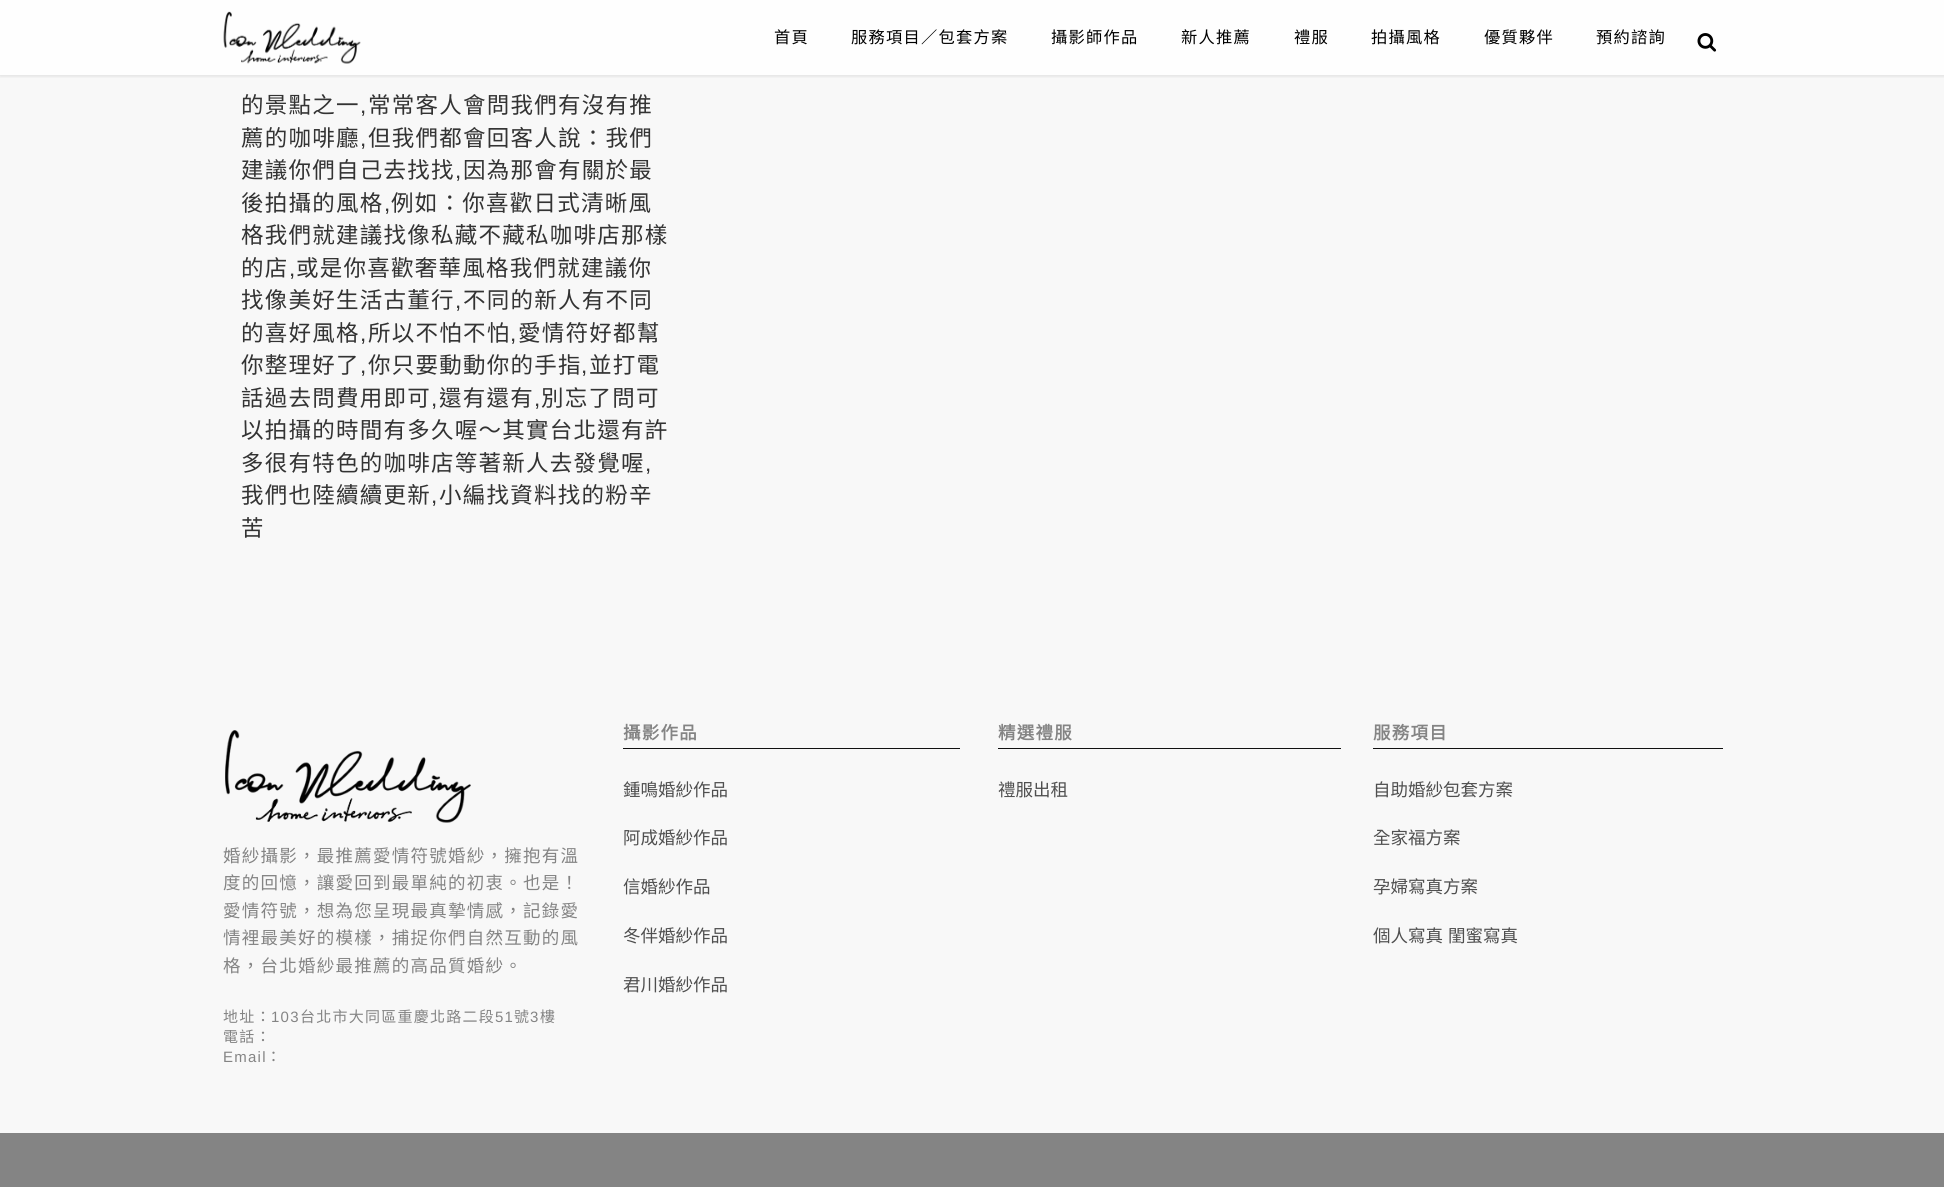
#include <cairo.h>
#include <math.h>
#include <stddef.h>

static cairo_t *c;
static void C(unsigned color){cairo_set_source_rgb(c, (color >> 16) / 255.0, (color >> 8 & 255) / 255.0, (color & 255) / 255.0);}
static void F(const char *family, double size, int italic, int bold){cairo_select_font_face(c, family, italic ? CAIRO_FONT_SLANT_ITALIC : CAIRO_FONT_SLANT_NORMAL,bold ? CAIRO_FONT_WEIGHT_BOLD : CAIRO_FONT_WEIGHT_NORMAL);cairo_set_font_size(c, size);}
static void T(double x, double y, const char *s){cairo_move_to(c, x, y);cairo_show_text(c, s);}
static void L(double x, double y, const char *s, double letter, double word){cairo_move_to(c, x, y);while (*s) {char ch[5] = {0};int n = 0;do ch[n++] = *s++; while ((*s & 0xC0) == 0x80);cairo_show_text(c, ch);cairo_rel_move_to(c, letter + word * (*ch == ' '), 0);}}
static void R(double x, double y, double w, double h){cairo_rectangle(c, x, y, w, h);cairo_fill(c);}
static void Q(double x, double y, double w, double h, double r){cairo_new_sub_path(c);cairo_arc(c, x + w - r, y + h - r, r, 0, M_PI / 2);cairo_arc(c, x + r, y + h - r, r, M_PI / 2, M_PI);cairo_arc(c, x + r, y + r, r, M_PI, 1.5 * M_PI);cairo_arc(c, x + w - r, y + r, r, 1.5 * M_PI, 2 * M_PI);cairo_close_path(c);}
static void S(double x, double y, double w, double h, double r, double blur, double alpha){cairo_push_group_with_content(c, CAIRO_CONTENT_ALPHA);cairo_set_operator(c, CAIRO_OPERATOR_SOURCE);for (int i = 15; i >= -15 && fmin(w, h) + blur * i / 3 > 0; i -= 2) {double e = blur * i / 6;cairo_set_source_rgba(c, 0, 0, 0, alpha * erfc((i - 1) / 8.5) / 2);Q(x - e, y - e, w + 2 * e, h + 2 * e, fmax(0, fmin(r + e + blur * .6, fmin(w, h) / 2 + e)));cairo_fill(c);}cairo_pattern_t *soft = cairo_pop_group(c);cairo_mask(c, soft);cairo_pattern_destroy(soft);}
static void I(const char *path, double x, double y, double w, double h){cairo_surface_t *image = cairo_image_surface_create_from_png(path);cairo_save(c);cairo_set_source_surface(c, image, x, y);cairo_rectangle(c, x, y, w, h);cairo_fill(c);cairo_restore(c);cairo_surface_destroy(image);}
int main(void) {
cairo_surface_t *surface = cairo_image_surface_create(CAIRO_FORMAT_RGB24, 1944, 1187);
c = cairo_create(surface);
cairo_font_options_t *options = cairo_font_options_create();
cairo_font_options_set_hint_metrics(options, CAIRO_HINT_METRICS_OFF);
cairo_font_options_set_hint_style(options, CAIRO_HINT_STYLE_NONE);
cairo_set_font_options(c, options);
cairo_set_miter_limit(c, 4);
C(0xf8f8f8);
cairo_paint(c);
cairo_save(c);
cairo_rectangle(c,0,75,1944,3);
cairo_clip(c);
C(0x000000);
S(0,1,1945,75,0,2,.11);
cairo_restore(c);
cairo_set_source_rgba(c,1,1,1,0.9);
R(0,0,1944,75);
I("1.png",223,11,138,53);
F("Noto Sans CJK TC",16.25,0,0);
C(0x000000);
L(774,43,"首頁",1.25,0);
L(851,43,"服務項目／包套方案",1.25,0);
L(1051,43,"攝影師作品",1.25,0);
L(1181,43,"新人推薦",1.25,0);
L(1294,43,"禮服",1.25,0);
L(1371,43,"拍攝風格",1.25,0);
L(1484,43,"優質夥伴",1.25,0);
L(1596,43,"預約諮詢",1.25,0);
I("2.png",1697,33,20,19);
F("Noto Sans CJK TC",22.5,0,0);
C(0x333333);
L(241,113,"的景點之一",1.25,0);
F("Liberation Sans",22.5,0,0);
L(360,113,",",1.25,0);
F("Noto Sans CJK TC",22.5,0,0);
L(368,113,"常常客人會問我們有沒有推",1.25,0);
L(241,146,"薦的咖啡廳",1.25,0);
F("Liberation Sans",22.5,0,0);
L(360,146,",",1.25,0);
F("Noto Sans CJK TC",22.5,0,0);
L(368,146,"但我們都會回客人說：我們",1.25,0);
L(241,178,"建議你們自己去找找",1.25,0);
F("Liberation Sans",22.5,0,0);
L(455,178,",",1.25,0);
F("Noto Sans CJK TC",22.5,0,0);
L(463,178,"因為那會有關於最",1.25,0);
L(241,211,"後拍攝的風格",1.25,0);
F("Liberation Sans",22.5,0,0);
L(384,211,",",1.25,0);
F("Noto Sans CJK TC",22.5,0,0);
L(391,211,"例如：你喜歡日式清晰風",1.25,0);
L(241,243,"格我們就建議找像私藏不藏私咖啡店那樣",1.25,0);
L(241,276,"的店",1.25,0);
F("Liberation Sans",22.5,0,0);
L(289,276,",",1.25,0);
F("Noto Sans CJK TC",22.5,0,0);
L(296,276,"或是你喜歡奢華風格我們就建議你",1.25,0);
L(241,308,"找像美好生活古董行",1.25,0);
F("Liberation Sans",22.5,0,0);
L(455,308,",",1.25,0);
F("Noto Sans CJK TC",22.5,0,0);
L(463,308,"不同的新人有不同",1.25,0);
L(241,341,"的喜好風格",1.25,0);
F("Liberation Sans",22.5,0,0);
L(360,341,",",1.25,0);
F("Noto Sans CJK TC",22.5,0,0);
L(368,341,"所以不怕不怕",1.25,0);
F("Liberation Sans",22.5,0,0);
L(510,341,",",1.25,0);
F("Noto Sans CJK TC",22.5,0,0);
L(518,341,"愛情符好都幫",1.25,0);
L(241,373,"你整理好了",1.25,0);
F("Liberation Sans",22.5,0,0);
L(360,373,",",1.25,0);
F("Noto Sans CJK TC",22.5,0,0);
L(368,373,"你只要動動你的手指",1.25,0);
F("Liberation Sans",22.5,0,0);
L(581,373,",",1.25,0);
F("Noto Sans CJK TC",22.5,0,0);
L(589,373,"並打電",1.25,0);
L(241,406,"話過去問費用即可",1.25,0);
F("Liberation Sans",22.5,0,0);
L(431,406,",",1.25,0);
F("Noto Sans CJK TC",22.5,0,0);
L(439,406,"還有還有",1.25,0);
F("Liberation Sans",22.5,0,0);
L(534,406,",",1.25,0);
F("Noto Sans CJK TC",22.5,0,0);
L(541,406,"別忘了問可",1.25,0);
L(241,438,"以拍攝的時間有多久喔～其實台北還有許",1.25,0);
L(241,471,"多很有特色的咖啡店等著新人去發覺喔",1.25,0);
F("Liberation Sans",22.5,0,0);
L(645,471,",",1.25,0);
F("Noto Sans CJK TC",22.5,0,0);
L(241,503,"我們也陸續續更新",1.25,0);
F("Liberation Sans",22.5,0,0);
L(431,503,",",1.25,0);
F("Noto Sans CJK TC",22.5,0,0);
L(439,503,"小編找資料找的粉辛",1.25,0);
L(241,536,"苦",1.25,0);
I("3.png",225,730,246,93);
F("Noto Sans CJK TC",17.5,0,0);
C(0x848484);
L(223,862,"婚紗攝影，最推薦愛情符號婚紗，擁抱有溫",1.25,0);
L(223,889,"度的回憶，讓愛回到最單純的初衷。也是！",1.25,0);
L(223,917,"愛情符號，想為您呈現最真摯情感，記錄愛",1.25,0);
L(223,944,"情裡最美好的模樣，捕捉你們自然互動的風",1.25,0);
L(223,972,"格，台北婚紗最推薦的高品質婚紗。",1.25,0);
F("Noto Sans CJK TC",15,0,0);
L(223,1022,"地址：",1.25,0);
F("Liberation Sans",15,0,0);
L(271,1022,"103",1.25,0);
F("Noto Sans CJK TC",15,0,0);
L(300,1022,"台北市大同區重慶北路二段",1.25,0);
F("Liberation Sans",15,0,0);
L(495,1022,"51",1.25,0);
F("Noto Sans CJK TC",15,0,0);
L(514,1022,"號",1.25,0);
F("Liberation Sans",15,0,0);
L(530,1022,"3",1.25,0);
F("Noto Sans CJK TC",15,0,0);
L(540,1022,"樓",1.25,0);
L(223,1042,"電話：",1.25,0);
F("Liberation Sans",15,0,0);
L(223,1062,"Email",1.25,0);
F("Noto Sans CJK TC",15,0,0);
L(266,1062,"：",1.25,0);
C(0x111111);
R(623,748,337,1);
F("Noto Sans CJK TC",17.5,0,1);
C(0x848484);
L(623,739,"攝影作品",1.25,0);
F("Noto Sans CJK TC",17.5,0,0);
C(0x4f4f4f);
T(623,796,"鍾鳴婚紗作品");
T(623,844,"阿成婚紗作品");
T(623,893,"信婚紗作品");
T(623,942,"冬伴婚紗作品");
T(623,991,"君川婚紗作品");
C(0x111111);
R(998,748,343,1);
F("Noto Sans CJK TC",17.5,0,1);
C(0x848484);
L(998,739,"精選禮服",1.25,0);
F("Noto Sans CJK TC",17.5,0,0);
C(0x4f4f4f);
T(998,796,"禮服出租");
C(0x111111);
R(1373,748,350,1);
F("Noto Sans CJK TC",17.5,0,1);
C(0x848484);
L(1373,739,"服務項目",1.25,0);
F("Noto Sans CJK TC",17.5,0,0);
C(0x4f4f4f);
T(1373,796,"自助婚紗包套方案");
T(1373,844,"全家福方案");
T(1373,893,"孕婦寫真方案");
L(1373,942,"個人寫真 閨蜜寫真",0,1);
C(0x848484);
R(0,1133,1944,54);
cairo_surface_write_to_png(surface, "o.png");
cairo_font_options_destroy(options);
cairo_destroy(c);
cairo_surface_destroy(surface);
return 0;
}
